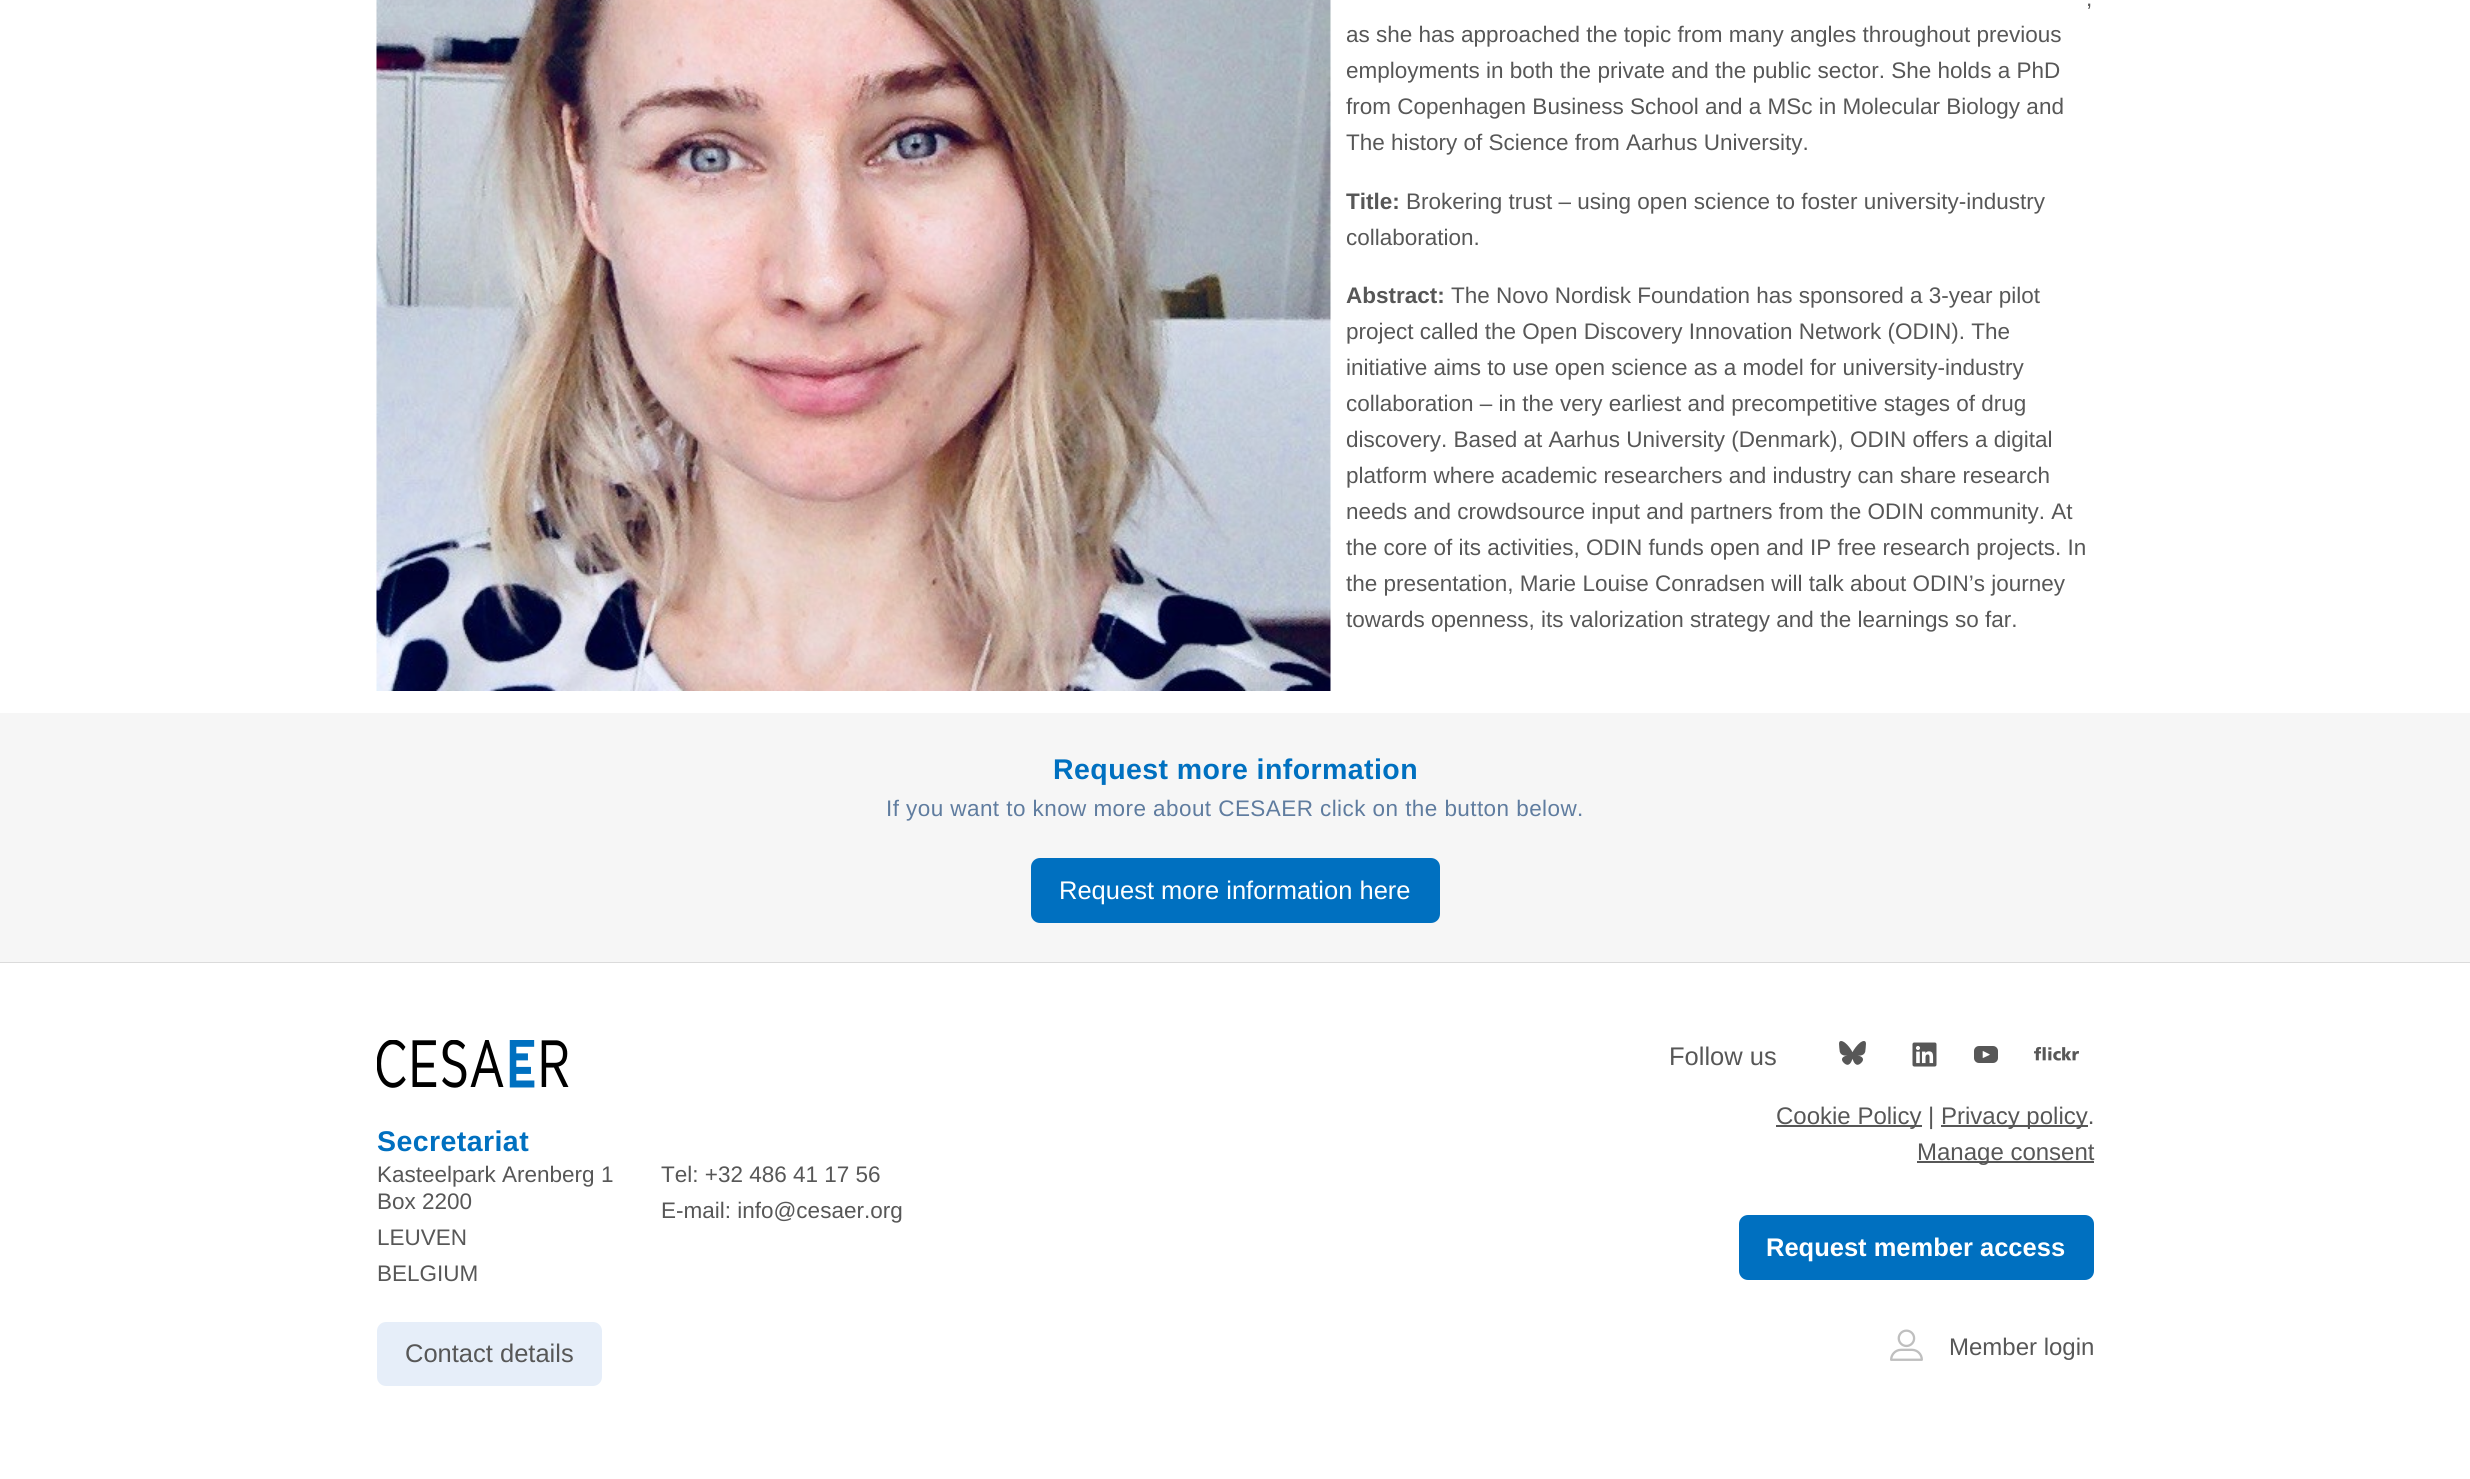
#include <cairo.h>
#include <math.h>
#include <stddef.h>

static cairo_t *c;
static void C(unsigned color){cairo_set_source_rgb(c, (color >> 16) / 255.0, (color >> 8 & 255) / 255.0, (color & 255) / 255.0);}
static void F(const char *family, double size, int italic, int bold){cairo_select_font_face(c, family, italic ? CAIRO_FONT_SLANT_ITALIC : CAIRO_FONT_SLANT_NORMAL,bold ? CAIRO_FONT_WEIGHT_BOLD : CAIRO_FONT_WEIGHT_NORMAL);cairo_set_font_size(c, size);}
static void T(double x, double y, const char *s){cairo_move_to(c, x, y);cairo_show_text(c, s);}
static void L(double x, double y, const char *s, double letter, double word){cairo_move_to(c, x, y);while (*s) {char ch[5] = {0};int n = 0;do ch[n++] = *s++; while ((*s & 0xC0) == 0x80);cairo_show_text(c, ch);cairo_rel_move_to(c, letter + word * (*ch == ' '), 0);}}
static void R(double x, double y, double w, double h){cairo_rectangle(c, x, y, w, h);cairo_fill(c);}
static void Q(double x, double y, double w, double h, double r){cairo_new_sub_path(c);cairo_arc(c, x + w - r, y + h - r, r, 0, M_PI / 2);cairo_arc(c, x + r, y + h - r, r, M_PI / 2, M_PI);cairo_arc(c, x + r, y + r, r, M_PI, 1.5 * M_PI);cairo_arc(c, x + w - r, y + r, r, 1.5 * M_PI, 2 * M_PI);cairo_close_path(c);}
static void I(const char *path, double x, double y, double w, double h){cairo_surface_t *image = cairo_image_surface_create_from_png(path);cairo_save(c);cairo_set_source_surface(c, image, x, y);cairo_rectangle(c, x, y, w, h);cairo_fill(c);cairo_restore(c);cairo_surface_destroy(image);}
int main(void) {
cairo_surface_t *surface = cairo_image_surface_create(CAIRO_FORMAT_RGB24, 2470, 1479);
c = cairo_create(surface);
cairo_font_options_t *options = cairo_font_options_create();
cairo_font_options_set_hint_metrics(options, CAIRO_HINT_METRICS_OFF);
cairo_font_options_set_hint_style(options, CAIRO_HINT_STYLE_NONE);
cairo_set_font_options(c, options);
cairo_set_miter_limit(c, 4);
C(0xffffff);
cairo_paint(c);
I("1.png",376,0,955,691);
F("Liberation Sans",22.5,0,0);
C(0x575757);
T(2086,6,",");
T(1346,42,"as she has approached the topic from many angles throughout previous");
T(1346,78,"employments in both the private and the public sector. She holds a PhD");
T(1346,114,"from Copenhagen Business School and a MSc in Molecular Biology and");
T(1346,150,"The history of Science from Aarhus University.");
F("Liberation Sans",22.5,0,1);
T(1346,209,"Title:");
F("Liberation Sans",22.5,0,0);
T(1406,209,"Brokering trust – using open science to foster university-industry");
T(1346,245,"collaboration.");
F("Liberation Sans",22.5,0,1);
T(1346,303,"Abstract:");
F("Liberation Sans",22.5,0,0);
T(1451,303,"The Novo Nordisk Foundation has sponsored a 3-year pilot");
T(1346,339,"project called the Open Discovery Innovation Network (ODIN). The");
T(1346,375,"initiative aims to use open science as a model for university-industry");
T(1346,411,"collaboration – in the very earliest and precompetitive stages of drug");
T(1346,447,"discovery. Based at Aarhus University (Denmark), ODIN offers a digital");
T(1346,483,"platform where academic researchers and industry can share research");
T(1346,519,"needs and crowdsource input and partners from the ODIN community. At");
T(1346,555,"the core of its activities, ODIN funds open and IP free research projects. In");
T(1346,591,"the presentation, Marie Louise Conradsen will talk about ODIN’s journey");
T(1346,627,"towards openness, its valorization strategy and the learnings so far.");
C(0xf6f6f6);
R(0,713,2470,249);
C(0xdbdbdb);
R(0,962,2470,1);
F("Liberation Sans",28.5,0,1);
C(0x0070c0);
L(1053,779,"Request more information",.43,0);
F("Liberation Sans",22.5,0,0);
C(0x5f7c9f);
L(886,816,"If you want to know more about CESAER click on the button below.",.43,0);
C(0x0070c0);
Q(1031,858,409,65,9);
cairo_fill(c);
F("Liberation Sans",25.5,0,0);
C(0xffffff);
T(1059,899,"Request more information here");
I("2.png",377,1040,192,48);
F("Liberation Sans",28.5,0,1);
C(0x0070c0);
L(377,1151,"Secretariat",.43,0);
F("Liberation Sans",22.5,0,0);
C(0x575757);
T(377,1182,"Kasteelpark Arenberg 1");
T(377,1209,"Box 2200");
T(377,1245,"LEUVEN");
T(377,1281,"BELGIUM");
T(661,1182,"Tel: +32 486 41 17 56");
T(661,1218,"E-mail: info@cesaer.org");
C(0xe6eef9);
Q(377,1322,225,64,9);
cairo_fill(c);
F("Liberation Sans",25.5,0,0);
C(0x575757);
T(405,1362,"Contact details");
T(1669,1065,"Follow us");
I("3.png",1839,1041,27,24);
I("4.png",1912,1042,25,25);
I("5.png",1974,1046,24,17);
I("6.png",2034,1046,45,15);
R(1776,1125,146,2);
F("Liberation Sans",24,0,0);
T(1776,1124,"Cookie Policy |");
R(1941,1125,147,2);
T(1941,1124,"Privacy policy.");
R(1917,1161,177,2);
T(1917,1160,"Manage consent");
C(0x0070c0);
Q(1739,1215,355,65,9);
cairo_fill(c);
F("Liberation Sans",25.5,0,1);
C(0xffffff);
T(1766,1256,"Request member access");
I("7.png",1890,1329,33,32);
F("Liberation Sans",24,0,0);
C(0x575757);
T(1949,1355,"Member login");
cairo_surface_write_to_png(surface, "o.png");
cairo_font_options_destroy(options);
cairo_destroy(c);
cairo_surface_destroy(surface);
return 0;
}
